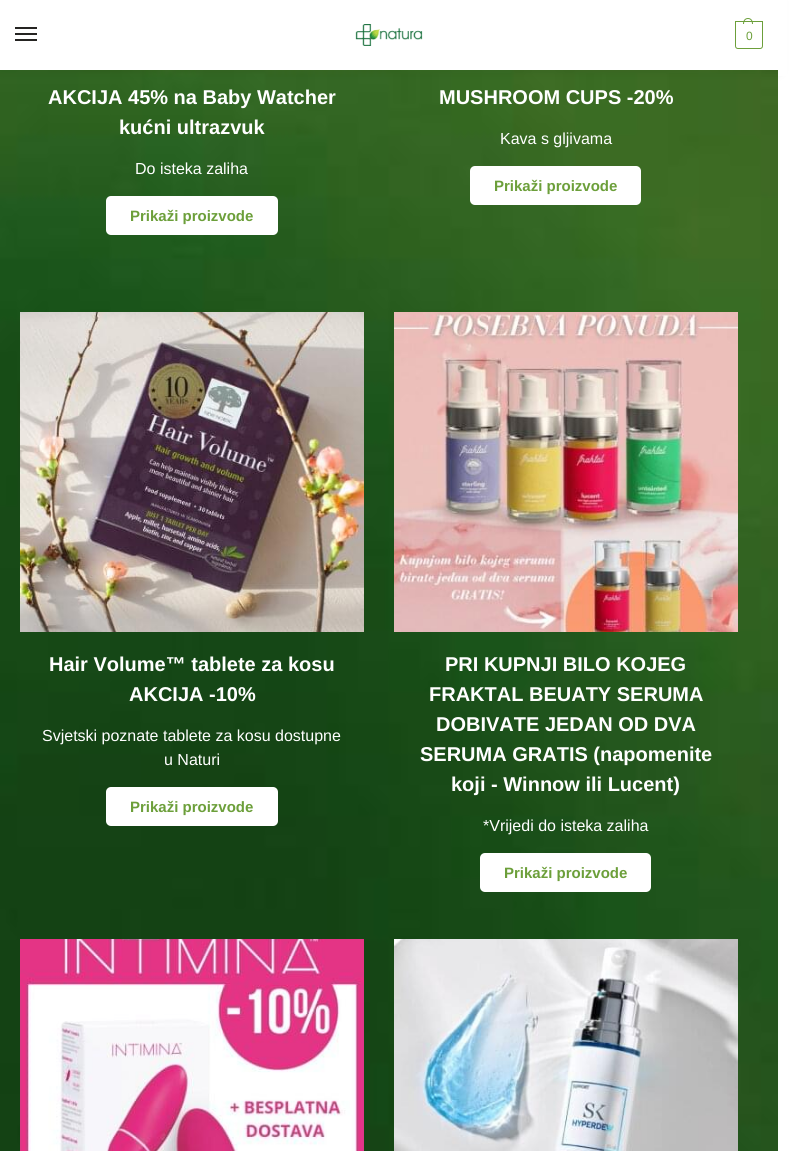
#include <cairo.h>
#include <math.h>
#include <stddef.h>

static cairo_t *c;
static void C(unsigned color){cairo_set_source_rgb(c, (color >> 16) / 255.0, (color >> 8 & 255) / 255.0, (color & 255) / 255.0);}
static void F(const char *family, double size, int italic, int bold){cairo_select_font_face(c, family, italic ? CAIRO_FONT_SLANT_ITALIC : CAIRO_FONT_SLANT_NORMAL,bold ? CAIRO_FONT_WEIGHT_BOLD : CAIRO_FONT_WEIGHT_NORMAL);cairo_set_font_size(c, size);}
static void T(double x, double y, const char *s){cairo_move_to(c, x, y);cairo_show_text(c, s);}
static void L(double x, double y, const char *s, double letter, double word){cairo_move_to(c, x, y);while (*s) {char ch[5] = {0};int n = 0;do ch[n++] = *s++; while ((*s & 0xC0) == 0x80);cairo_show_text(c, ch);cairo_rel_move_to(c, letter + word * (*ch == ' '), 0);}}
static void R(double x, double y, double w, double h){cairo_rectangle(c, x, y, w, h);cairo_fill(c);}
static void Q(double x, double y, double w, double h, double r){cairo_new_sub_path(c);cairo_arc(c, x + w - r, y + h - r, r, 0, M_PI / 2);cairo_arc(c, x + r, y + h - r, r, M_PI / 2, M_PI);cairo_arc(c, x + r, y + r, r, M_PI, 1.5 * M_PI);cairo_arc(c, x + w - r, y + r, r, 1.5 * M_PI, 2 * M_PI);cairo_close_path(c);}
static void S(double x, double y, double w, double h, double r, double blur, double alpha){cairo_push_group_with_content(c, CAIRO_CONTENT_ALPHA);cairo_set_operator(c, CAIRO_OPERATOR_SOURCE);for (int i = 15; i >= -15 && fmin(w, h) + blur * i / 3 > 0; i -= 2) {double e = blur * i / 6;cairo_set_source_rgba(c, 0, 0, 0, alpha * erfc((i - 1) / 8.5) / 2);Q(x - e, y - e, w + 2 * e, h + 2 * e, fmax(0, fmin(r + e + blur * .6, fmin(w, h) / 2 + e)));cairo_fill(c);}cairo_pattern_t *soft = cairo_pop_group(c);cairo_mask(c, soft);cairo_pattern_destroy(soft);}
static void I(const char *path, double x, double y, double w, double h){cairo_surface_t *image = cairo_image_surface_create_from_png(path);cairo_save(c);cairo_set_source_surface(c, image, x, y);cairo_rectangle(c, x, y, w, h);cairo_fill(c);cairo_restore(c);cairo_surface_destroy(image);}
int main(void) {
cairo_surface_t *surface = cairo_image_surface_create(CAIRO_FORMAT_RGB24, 793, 1151);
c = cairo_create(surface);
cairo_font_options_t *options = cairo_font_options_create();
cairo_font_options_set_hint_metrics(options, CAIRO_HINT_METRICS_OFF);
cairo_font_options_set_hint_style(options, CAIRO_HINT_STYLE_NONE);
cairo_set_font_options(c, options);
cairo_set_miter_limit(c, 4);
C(0xffffff);
cairo_paint(c);
I("2.png",0,70,778,1081);
C(0x000000);
S(0,1,778,70,0,7.5,.08);
C(0xffffff);
R(0,0,778,70);
C(0x252422);
R(15,27,22,2);
R(15,33,22,2);
R(15,39,22,2);
I("1.png",355,24,68,22);
cairo_new_path(c);
cairo_move_to(c,735.5,21.5);
cairo_line_to(c,762.5,21.5);
cairo_line_to(c,762.5,46);
cairo_curve_to(c,762.5,47.5,761.5,48.5,760,48.5);
cairo_line_to(c,738,48.5);
cairo_curve_to(c,736.5,48.5,735.5,47.5,735.5,46);
cairo_close_path(c);
C(0x6c9f3a);
cairo_set_line_width(c,1);
cairo_stroke(c);
cairo_set_fill_rule(c,CAIRO_FILL_RULE_EVEN_ODD);
cairo_new_path(c);
cairo_move_to(c,748,18);
cairo_curve_to(c,751.5,18,753,21,753,24);
cairo_line_to(c,743,24);
cairo_curve_to(c,743,21,744.5,18,748,18);
cairo_close_path(c);
cairo_move_to(c,748,19);
cairo_curve_to(c,751,19,752,21.5,752,24);
cairo_line_to(c,744,24);
cairo_curve_to(c,744,21.5,745,19,748,19);
cairo_close_path(c);
cairo_fill(c);
F("Liberation Sans",12,0,0);
L(746,40,"0",-1,0);
C(0xffffff);
R(778,0,9,76);
F("Liberation Sans",20,0,1);
T(48,104,"AKCIJA 45% na Baby Watcher");
T(119,134,"kućni ultrazvuk");
F("Liberation Sans",16,0,0);
T(135,174,"Do isteka zaliha");
Q(106,196,172,39,5);
cairo_fill(c);
F("Liberation Sans",15,0,1);
C(0x6c9f3a);
T(130,221,"Prikaži proizvode");
F("Liberation Sans",20,0,1);
C(0xffffff);
T(439,104,"MUSHROOM CUPS -20%");
F("Liberation Sans",16,0,0);
T(500,144,"Kava s gljivama");
Q(470,166,171,39,5);
cairo_fill(c);
F("Liberation Sans",15,0,1);
C(0x6c9f3a);
T(494,191,"Prikaži proizvode");
I("3.png",20,312,344,320);
F("Liberation Sans",20,0,1);
C(0xffffff);
T(49,671,"Hair Volume™ tablete za kosu");
T(129,701,"AKCIJA -10%");
F("Liberation Sans",16,0,0);
T(42,741,"Svjetski poznate tablete za kosu dostupne");
T(164,765,"u Naturi");
Q(106,787,172,39,5);
cairo_fill(c);
F("Liberation Sans",15,0,1);
C(0x6c9f3a);
T(130,812,"Prikaži proizvode");
I("4.png",394,312,344,320);
F("Liberation Sans",20,0,1);
C(0xffffff);
T(445,671,"PRI KUPNJI BILO KOJEG");
T(429,701,"FRAKTAL BEUATY SERUMA");
T(436,731,"DOBIVATE JEDAN OD DVA");
T(420,761,"SERUMA GRATIS (napomenite");
T(451,791,"koji - Winnow ili Lucent)");
F("Liberation Sans",16,0,0);
T(483,831,"*Vrijedi do isteka zaliha");
Q(480,853,171,39,5);
cairo_fill(c);
F("Liberation Sans",15,0,1);
C(0x6c9f3a);
T(504,878,"Prikaži proizvode");
I("5.png",20,939,344,212);
I("6.png",394,939,344,212);
cairo_surface_write_to_png(surface, "o.png");
cairo_font_options_destroy(options);
cairo_destroy(c);
cairo_surface_destroy(surface);
return 0;
}
